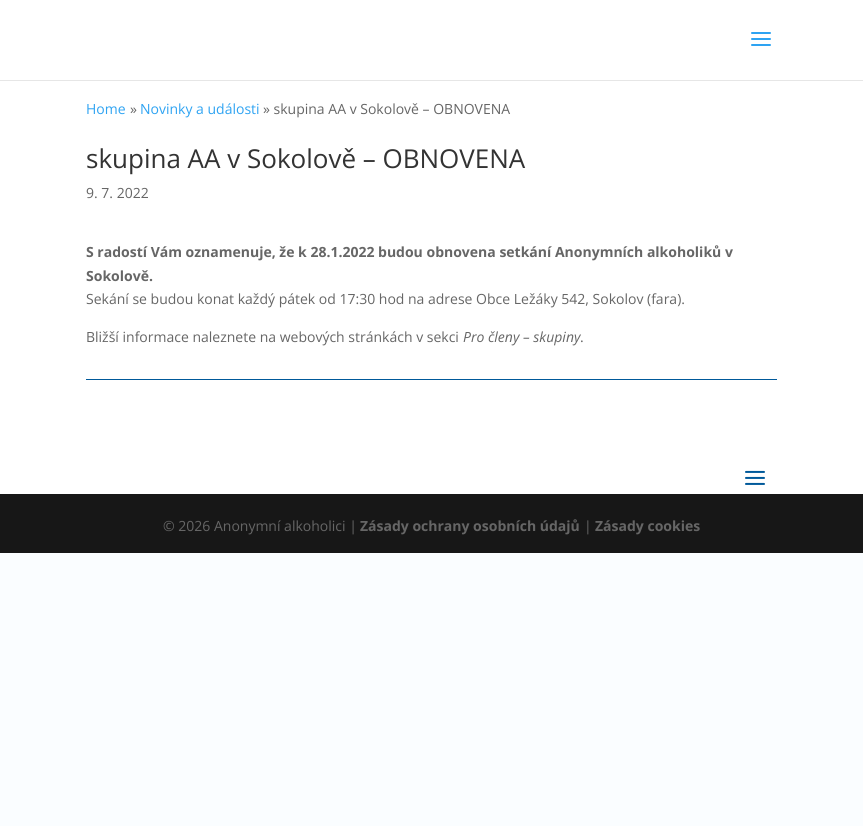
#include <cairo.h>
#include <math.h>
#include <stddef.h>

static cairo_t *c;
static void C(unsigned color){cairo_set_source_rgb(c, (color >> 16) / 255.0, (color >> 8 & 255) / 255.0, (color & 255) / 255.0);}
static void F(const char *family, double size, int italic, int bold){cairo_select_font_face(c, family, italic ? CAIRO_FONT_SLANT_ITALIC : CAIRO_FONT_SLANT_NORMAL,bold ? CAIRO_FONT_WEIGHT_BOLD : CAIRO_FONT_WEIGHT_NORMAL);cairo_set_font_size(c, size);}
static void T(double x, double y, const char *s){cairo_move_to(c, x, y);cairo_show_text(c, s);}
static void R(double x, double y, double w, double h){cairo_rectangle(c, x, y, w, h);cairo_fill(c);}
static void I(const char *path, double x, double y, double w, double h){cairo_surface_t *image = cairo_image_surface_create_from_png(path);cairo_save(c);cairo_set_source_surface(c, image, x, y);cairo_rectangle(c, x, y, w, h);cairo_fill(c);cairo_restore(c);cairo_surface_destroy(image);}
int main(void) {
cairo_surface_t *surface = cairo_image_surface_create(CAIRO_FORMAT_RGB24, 863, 826);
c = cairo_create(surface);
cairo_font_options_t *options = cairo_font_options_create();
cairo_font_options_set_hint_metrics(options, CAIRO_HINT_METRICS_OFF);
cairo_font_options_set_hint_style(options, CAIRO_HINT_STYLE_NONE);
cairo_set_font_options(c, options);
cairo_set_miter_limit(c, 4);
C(0xfafdff);
cairo_paint(c);
C(0xe6e6e6);
R(0,80,863,1);
C(0xffffff);
R(0,0,863,80);
I("1.png",751,32,20,14);
R(0,81,863,413);
F("Open Sans",14,0,0);
C(0x2ea3f2);
T(86,114,"Home");
C(0x666666);
T(130,114,"»");
C(0x2ea3f2);
T(140,114,"Novinky a události");
C(0x666666);
T(263,114,"» skupina AA v Sokolově – OBNOVENA");
F("Open Sans",26,0,0);
C(0x333333);
T(86,168,"skupina AA v Sokolově – OBNOVENA");
F("Open Sans",14,0,0);
C(0x666666);
T(86,198,"9. 7. 2022");
F("Open Sans",14,0,1);
T(86,257,"S radostí Vám oznamenuje, že k 28.1.2022 budou obnovena setkání Anonymních alkoholiků v");
T(86,281,"Sokolově.");
F("Open Sans",14,0,0);
T(86,304,"Sekání se budou konat každý pátek od 17:30 hod na adrese Obce Ležáky 542, Sokolov (fara).");
T(86,342,"Bližší informace naleznete na webových stránkách v sekci");
F("Open Sans",14,1,0);
T(463,342,"Pro členy – skupiny");
F("Open Sans",14,0,0);
T(580,342,".");
C(0x00599a);
R(86,379,691,1);
I("2.png",745,470,20,15);
C(0x171717);
R(0,494,863,59);
C(0x666666);
T(163,531,"© 2026 Anonymní alkoholici |");
F("Open Sans",14,0,1);
T(360,531,"Zásady ochrany osobních údajů");
F("Open Sans",14,0,0);
T(584,531,"|");
F("Open Sans",14,0,1);
T(595,531,"Zásady cookies");
cairo_surface_write_to_png(surface, "o.png");
cairo_font_options_destroy(options);
cairo_destroy(c);
cairo_surface_destroy(surface);
return 0;
}
